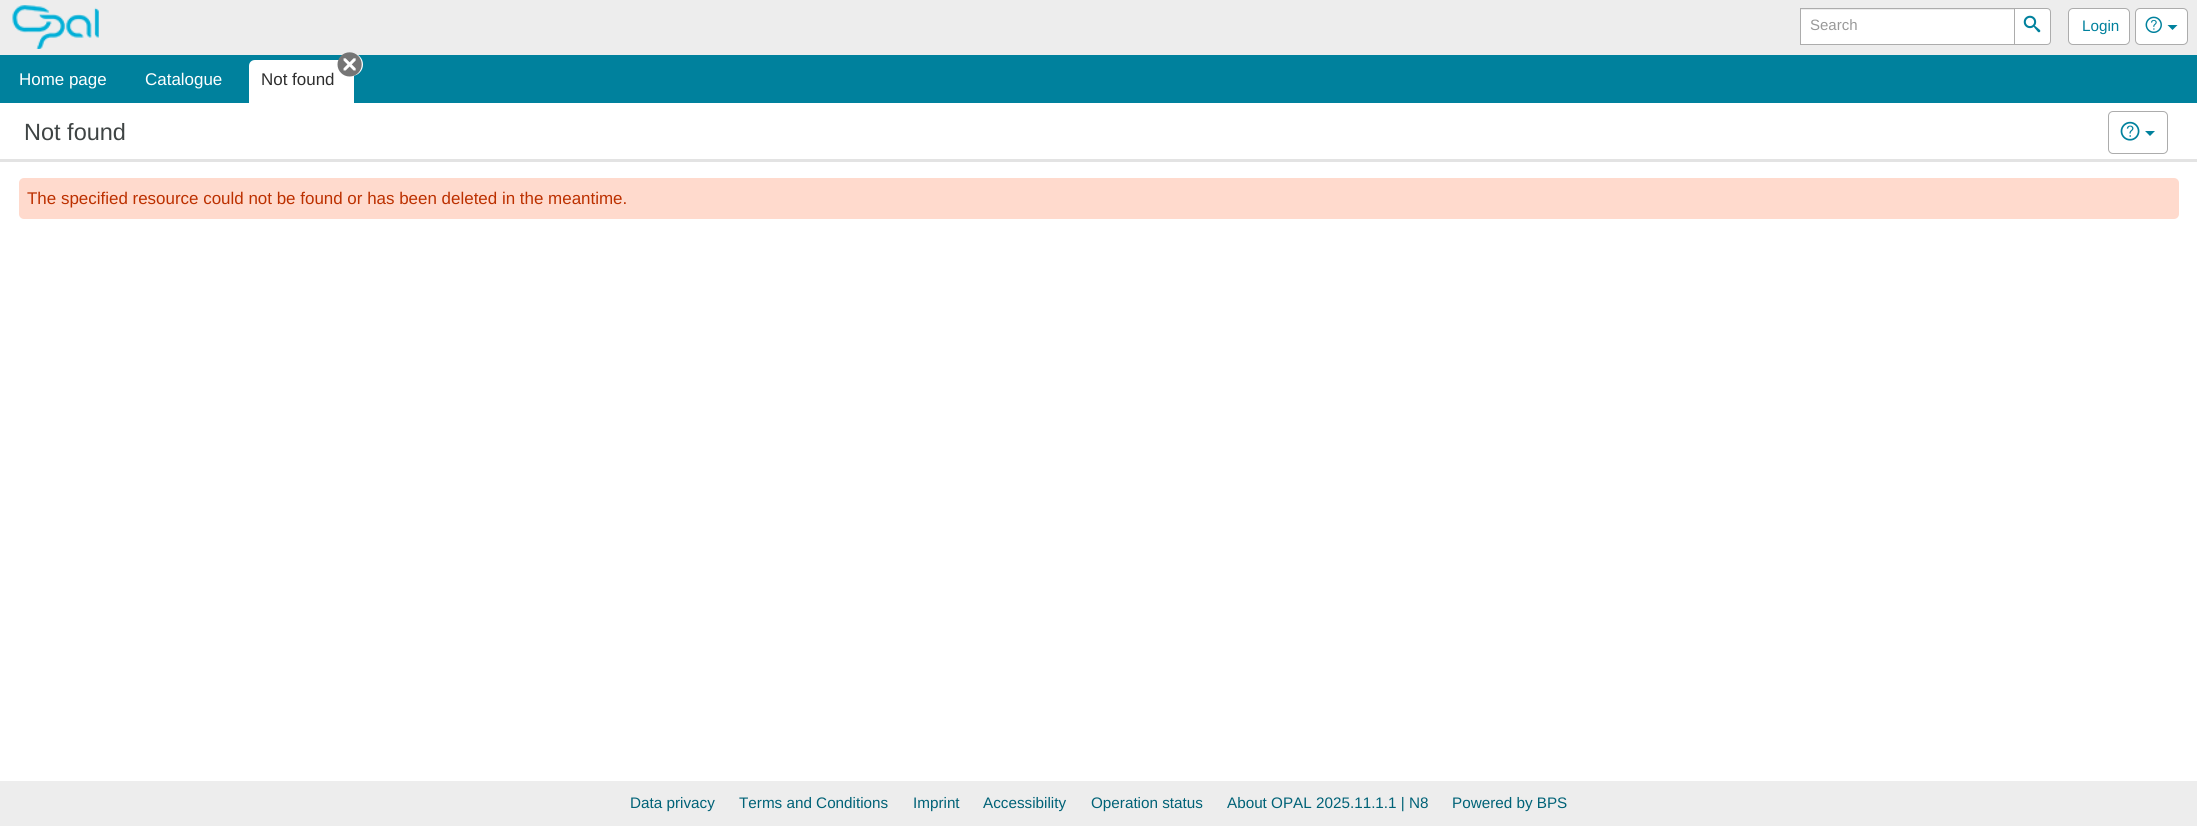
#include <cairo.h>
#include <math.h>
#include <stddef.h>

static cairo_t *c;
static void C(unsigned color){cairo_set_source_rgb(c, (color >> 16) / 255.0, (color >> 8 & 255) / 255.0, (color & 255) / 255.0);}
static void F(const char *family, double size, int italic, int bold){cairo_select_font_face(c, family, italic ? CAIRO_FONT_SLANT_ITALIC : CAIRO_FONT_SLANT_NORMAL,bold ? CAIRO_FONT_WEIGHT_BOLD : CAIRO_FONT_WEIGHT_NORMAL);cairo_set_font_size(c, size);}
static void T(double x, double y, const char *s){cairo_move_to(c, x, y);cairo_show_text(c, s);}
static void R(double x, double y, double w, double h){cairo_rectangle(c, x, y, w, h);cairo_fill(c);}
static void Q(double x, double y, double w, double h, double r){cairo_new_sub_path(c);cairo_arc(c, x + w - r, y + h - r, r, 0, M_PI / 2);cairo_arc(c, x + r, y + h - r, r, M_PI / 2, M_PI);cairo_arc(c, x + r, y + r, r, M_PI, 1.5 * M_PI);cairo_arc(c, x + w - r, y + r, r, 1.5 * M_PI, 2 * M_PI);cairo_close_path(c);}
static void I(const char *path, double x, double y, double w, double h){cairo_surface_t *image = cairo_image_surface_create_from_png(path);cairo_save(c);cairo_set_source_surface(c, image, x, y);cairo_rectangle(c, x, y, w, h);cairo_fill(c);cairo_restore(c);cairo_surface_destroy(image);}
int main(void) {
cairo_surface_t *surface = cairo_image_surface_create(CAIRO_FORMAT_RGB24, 2197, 826);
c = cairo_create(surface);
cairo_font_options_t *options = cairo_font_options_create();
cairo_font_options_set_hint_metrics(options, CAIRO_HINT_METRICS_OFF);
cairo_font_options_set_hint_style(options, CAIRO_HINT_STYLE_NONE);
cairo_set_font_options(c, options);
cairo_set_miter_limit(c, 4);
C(0xffffff);
cairo_paint(c);
C(0xededed);
R(0,0,2197,55);
I("1.png",12,5,87,44);
C(0xffffff);
R(1801,10,213,34);
cairo_rectangle(c,1800.5,8.5,214,36);
C(0xacacac);
cairo_set_line_width(c,1);
cairo_stroke(c);
F("Liberation Sans",15,0,0);
C(0x999999);
T(1810,30,"Search");
C(0xffffff);
cairo_new_path(c);
cairo_move_to(c,2014.5,8.5);
cairo_line_to(c,2047,8.5);
cairo_curve_to(c,2049,8.5,2050.5,10,2050.5,12);
cairo_line_to(c,2050.5,41);
cairo_curve_to(c,2050.5,43,2049,44.5,2047,44.5);
cairo_line_to(c,2014.5,44.5);
cairo_close_path(c);
cairo_fill_preserve(c);
C(0xacacac);
cairo_stroke(c);
I("2.png",2023,15,18,18);
C(0xffffff);
Q(2068.5,8.5,61,36,4.5);
cairo_fill_preserve(c);
C(0xacacac);
cairo_stroke(c);
F("Liberation Sans",15.25,0,0);
C(0x00819d);
T(2082,31,"Login");
C(0xffffff);
Q(2135.5,8.5,52,36,4.5);
cairo_fill_preserve(c);
C(0xacacac);
cairo_stroke(c);
I("3.png",2145,16,17,17);
C(0x00819d);
cairo_new_path(c);
cairo_move_to(c,2167.5,25);
cairo_line_to(c,2177.5,25);
cairo_line_to(c,2172.5,30);
cairo_close_path(c);
cairo_fill(c);
R(0,55,2197,48);
F("Liberation Sans",16.95,0,0);
C(0xffffff);
T(19,85,"Home page");
T(145,85,"Catalogue");
cairo_new_path(c);
cairo_move_to(c,255,60);
cairo_line_to(c,354,60);
cairo_line_to(c,354,103);
cairo_line_to(c,249,103);
cairo_line_to(c,249,66);
cairo_curve_to(c,249,62.5,251.5,60,255,60);
cairo_close_path(c);
cairo_fill(c);
Q(338,53,25,23,11.5);
cairo_fill(c);
I("4.png",337,52,25,25);
C(0x2e2e2e);
T(261,85,"Not found");
C(0xe3e3e3);
R(0,159,2197,3);
F("Liberation Sans",23.5,0,0);
C(0x3f4444);
T(24,140,"Not found");
Q(2108.5,111.5,59,42,4.5);
C(0xacacac);
cairo_stroke(c);
I("5.png",2120,121,20,20);
C(0x00819d);
cairo_new_path(c);
cairo_move_to(c,2145,131);
cairo_line_to(c,2155,131);
cairo_line_to(c,2150,136);
cairo_close_path(c);
cairo_fill(c);
C(0xffdacd);
Q(19,178,2160,41,5);
cairo_fill(c);
F("Liberation Sans",16.95,0,0);
C(0xbc3000);
T(27,204,"The specified resource could not be found or has been deleted in the meantime.");
C(0xededed);
R(0,781,2197,45);
F("Liberation Sans",15.25,0,0);
C(0x006277);
T(630,808,"Data privacy");
T(739,808,"Terms and Conditions");
T(913,808,"Imprint");
T(983,808,"Accessibility");
T(1091,808,"Operation status");
T(1227,808,"About OPAL 2025.11.1.1 | N8");
T(1452,808,"Powered by BPS");
cairo_surface_write_to_png(surface, "o.png");
cairo_font_options_destroy(options);
cairo_destroy(c);
cairo_surface_destroy(surface);
return 0;
}
